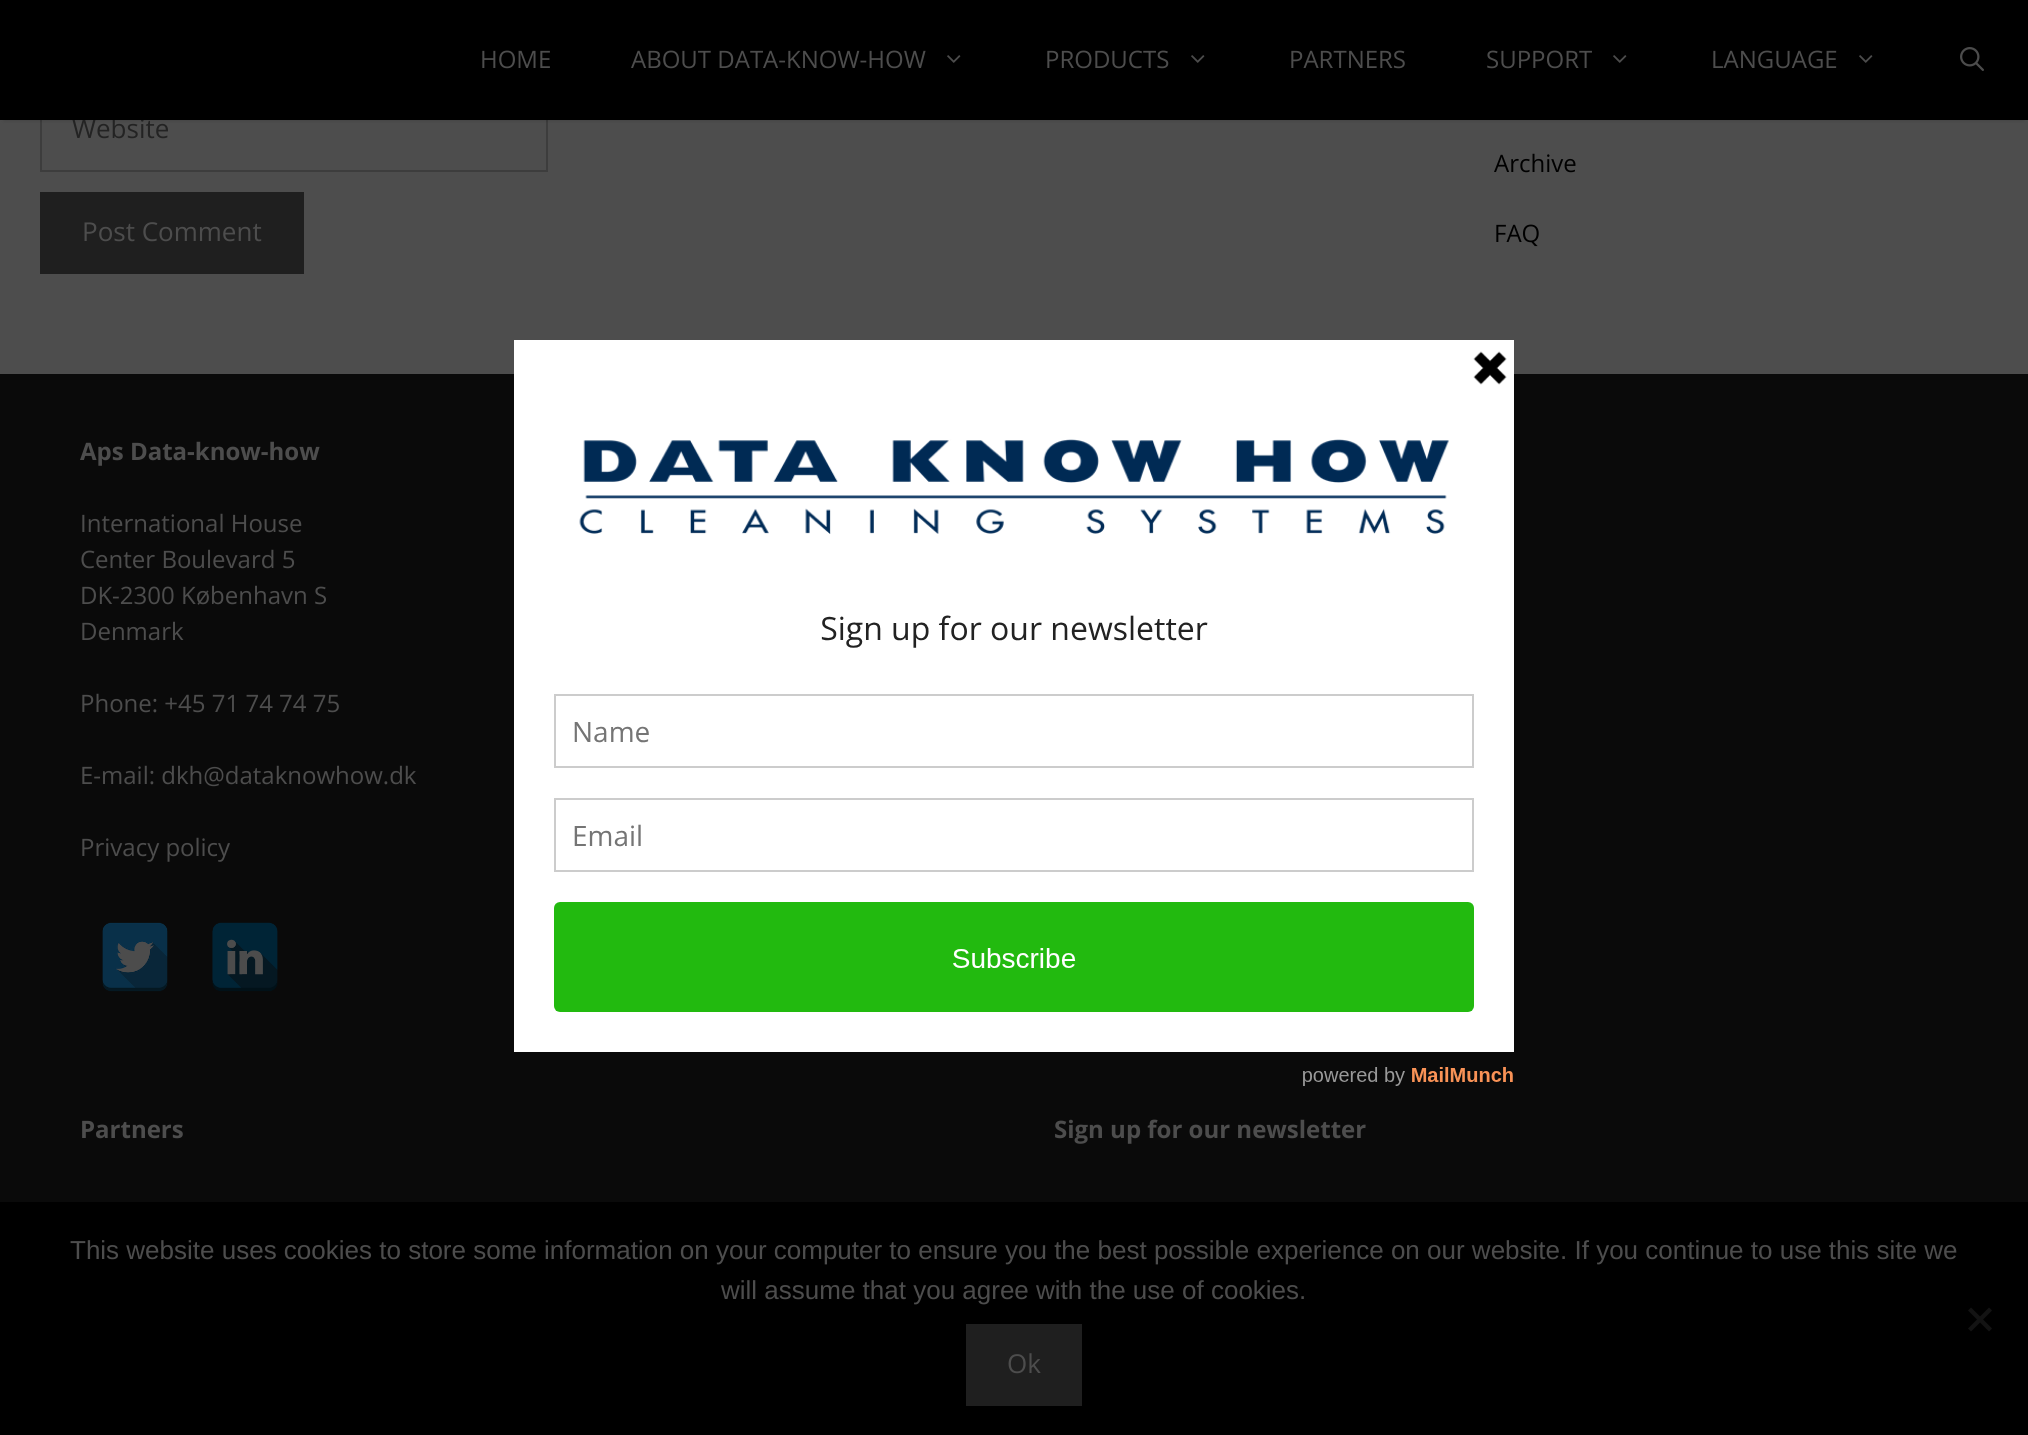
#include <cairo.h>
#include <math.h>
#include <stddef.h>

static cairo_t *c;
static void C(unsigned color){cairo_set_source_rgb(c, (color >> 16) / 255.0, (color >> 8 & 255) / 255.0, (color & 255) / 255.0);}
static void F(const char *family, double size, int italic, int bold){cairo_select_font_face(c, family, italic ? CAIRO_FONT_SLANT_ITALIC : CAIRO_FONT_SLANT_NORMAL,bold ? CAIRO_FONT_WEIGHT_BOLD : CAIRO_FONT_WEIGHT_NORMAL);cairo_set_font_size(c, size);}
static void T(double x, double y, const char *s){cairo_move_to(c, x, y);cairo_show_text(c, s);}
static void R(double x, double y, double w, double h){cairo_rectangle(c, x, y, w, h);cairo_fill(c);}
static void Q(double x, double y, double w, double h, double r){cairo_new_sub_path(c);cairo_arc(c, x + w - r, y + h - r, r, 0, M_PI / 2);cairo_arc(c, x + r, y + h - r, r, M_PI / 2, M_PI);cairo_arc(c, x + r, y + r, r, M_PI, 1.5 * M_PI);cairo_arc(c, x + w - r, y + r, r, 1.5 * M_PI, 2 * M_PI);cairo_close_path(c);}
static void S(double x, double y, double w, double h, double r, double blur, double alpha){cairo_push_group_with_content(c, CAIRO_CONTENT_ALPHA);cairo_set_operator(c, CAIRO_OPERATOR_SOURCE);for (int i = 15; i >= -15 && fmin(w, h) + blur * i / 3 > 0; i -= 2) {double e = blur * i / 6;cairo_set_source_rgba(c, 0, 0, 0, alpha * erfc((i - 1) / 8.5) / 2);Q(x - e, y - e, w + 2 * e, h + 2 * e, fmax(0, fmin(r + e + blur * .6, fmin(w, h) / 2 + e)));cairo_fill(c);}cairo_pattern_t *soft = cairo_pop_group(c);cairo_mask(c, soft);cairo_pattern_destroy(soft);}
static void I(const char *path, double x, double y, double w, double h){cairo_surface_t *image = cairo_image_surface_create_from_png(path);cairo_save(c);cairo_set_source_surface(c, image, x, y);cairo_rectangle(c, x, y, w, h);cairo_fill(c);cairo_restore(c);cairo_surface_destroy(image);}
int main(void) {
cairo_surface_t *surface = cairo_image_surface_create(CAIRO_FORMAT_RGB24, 2028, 1435);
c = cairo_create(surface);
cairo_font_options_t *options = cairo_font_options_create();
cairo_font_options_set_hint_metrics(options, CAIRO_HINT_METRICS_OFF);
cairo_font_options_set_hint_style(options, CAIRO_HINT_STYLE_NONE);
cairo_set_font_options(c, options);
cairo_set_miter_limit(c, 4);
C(0x4d4d4d);
cairo_paint(c);
cairo_rectangle(c,41,89,506,82);
C(0x3d3d3d);
cairo_stroke(c);
C(0x000000);
S(4,8,2020,112,0,2,.2);
F("Open Sans",26,0,0);
C(0x232323);
T(72,138,"Website");
C(0x000000);
R(0,0,2028,120);
F("Open Sans",24,0,0);
C(0x4d4d4d);
T(480,68,"HOME");
T(631,68,"ABOUT DATA-KNOW-HOW");
I("1.png",947,55,14,8);
T(1045,68,"PRODUCTS");
I("1.png",1191,55,14,8);
T(1289,68,"PARTNERS");
T(1486,68,"SUPPORT");
I("1.png",1613,55,14,8);
T(1711,68,"LANGUAGE");
I("1.png",1859,55,14,8);
I("2.png",1960,47,24,24);
C(0x1f1f1f);
R(40,192,264,82);
F("Open Sans",26,0,0);
C(0x4d4d4d);
T(82,241,"Post Comment");
F("Open Sans",24,0,0);
C(0x000000);
T(1494,172,"Archive");
T(1494,242,"FAQ");
C(0x0a0a0a);
R(0,374,2028,828);
I("3.png",514,340,1000,746);
F("Open Sans",24,0,1);
C(0x4d4d4d);
T(80,460,"Aps Data-know-how");
F("Open Sans",24,0,0);
T(80,532,"International House");
T(80,568,"Center Boulevard 5");
T(80,604,"DK-2300 København S");
T(80,640,"Denmark");
T(80,712,"Phone: +45 71 74 74 75");
T(80,784,"E-mail: dkh@dataknowhow.dk");
T(80,856,"Privacy policy");
I("4.png",102,922,66,70);
I("5.png",212,922,66,70);
F("Open Sans",24,0,1);
T(80,1138,"Partners");
T(1054,1138,"Sign up for our newsletter");
C(0x000000);
R(0,1202,2028,233);
F("Liberation Sans",26,0,0);
C(0x4d4d4d);
T(70,1259,"This website uses cookies to store some information on your computer to ensure you the best possible experience on our website. If you continue to use this site we");
T(721,1299,"will assume that you agree with the use of cookies.");
C(0x131313);
cairo_new_path(c);
cairo_move_to(c,1989,1307.5);
cairo_line_to(c,1992,1310.5);
cairo_line_to(c,1971,1331.5);
cairo_line_to(c,1968,1328.5);
cairo_close_path(c);
cairo_fill(c);
cairo_new_path(c);
cairo_move_to(c,1968,1310.5);
cairo_line_to(c,1971,1307.5);
cairo_line_to(c,1992,1328.5);
cairo_line_to(c,1989,1331.5);
cairo_close_path(c);
cairo_fill(c);
C(0x1f1f1f);
R(966,1324,116,82);
F("Open Sans",26,0,0);
C(0x4d4d4d);
T(1007,1373,"Ok");
cairo_surface_write_to_png(surface, "o.png");
cairo_font_options_destroy(options);
cairo_destroy(c);
cairo_surface_destroy(surface);
return 0;
}
